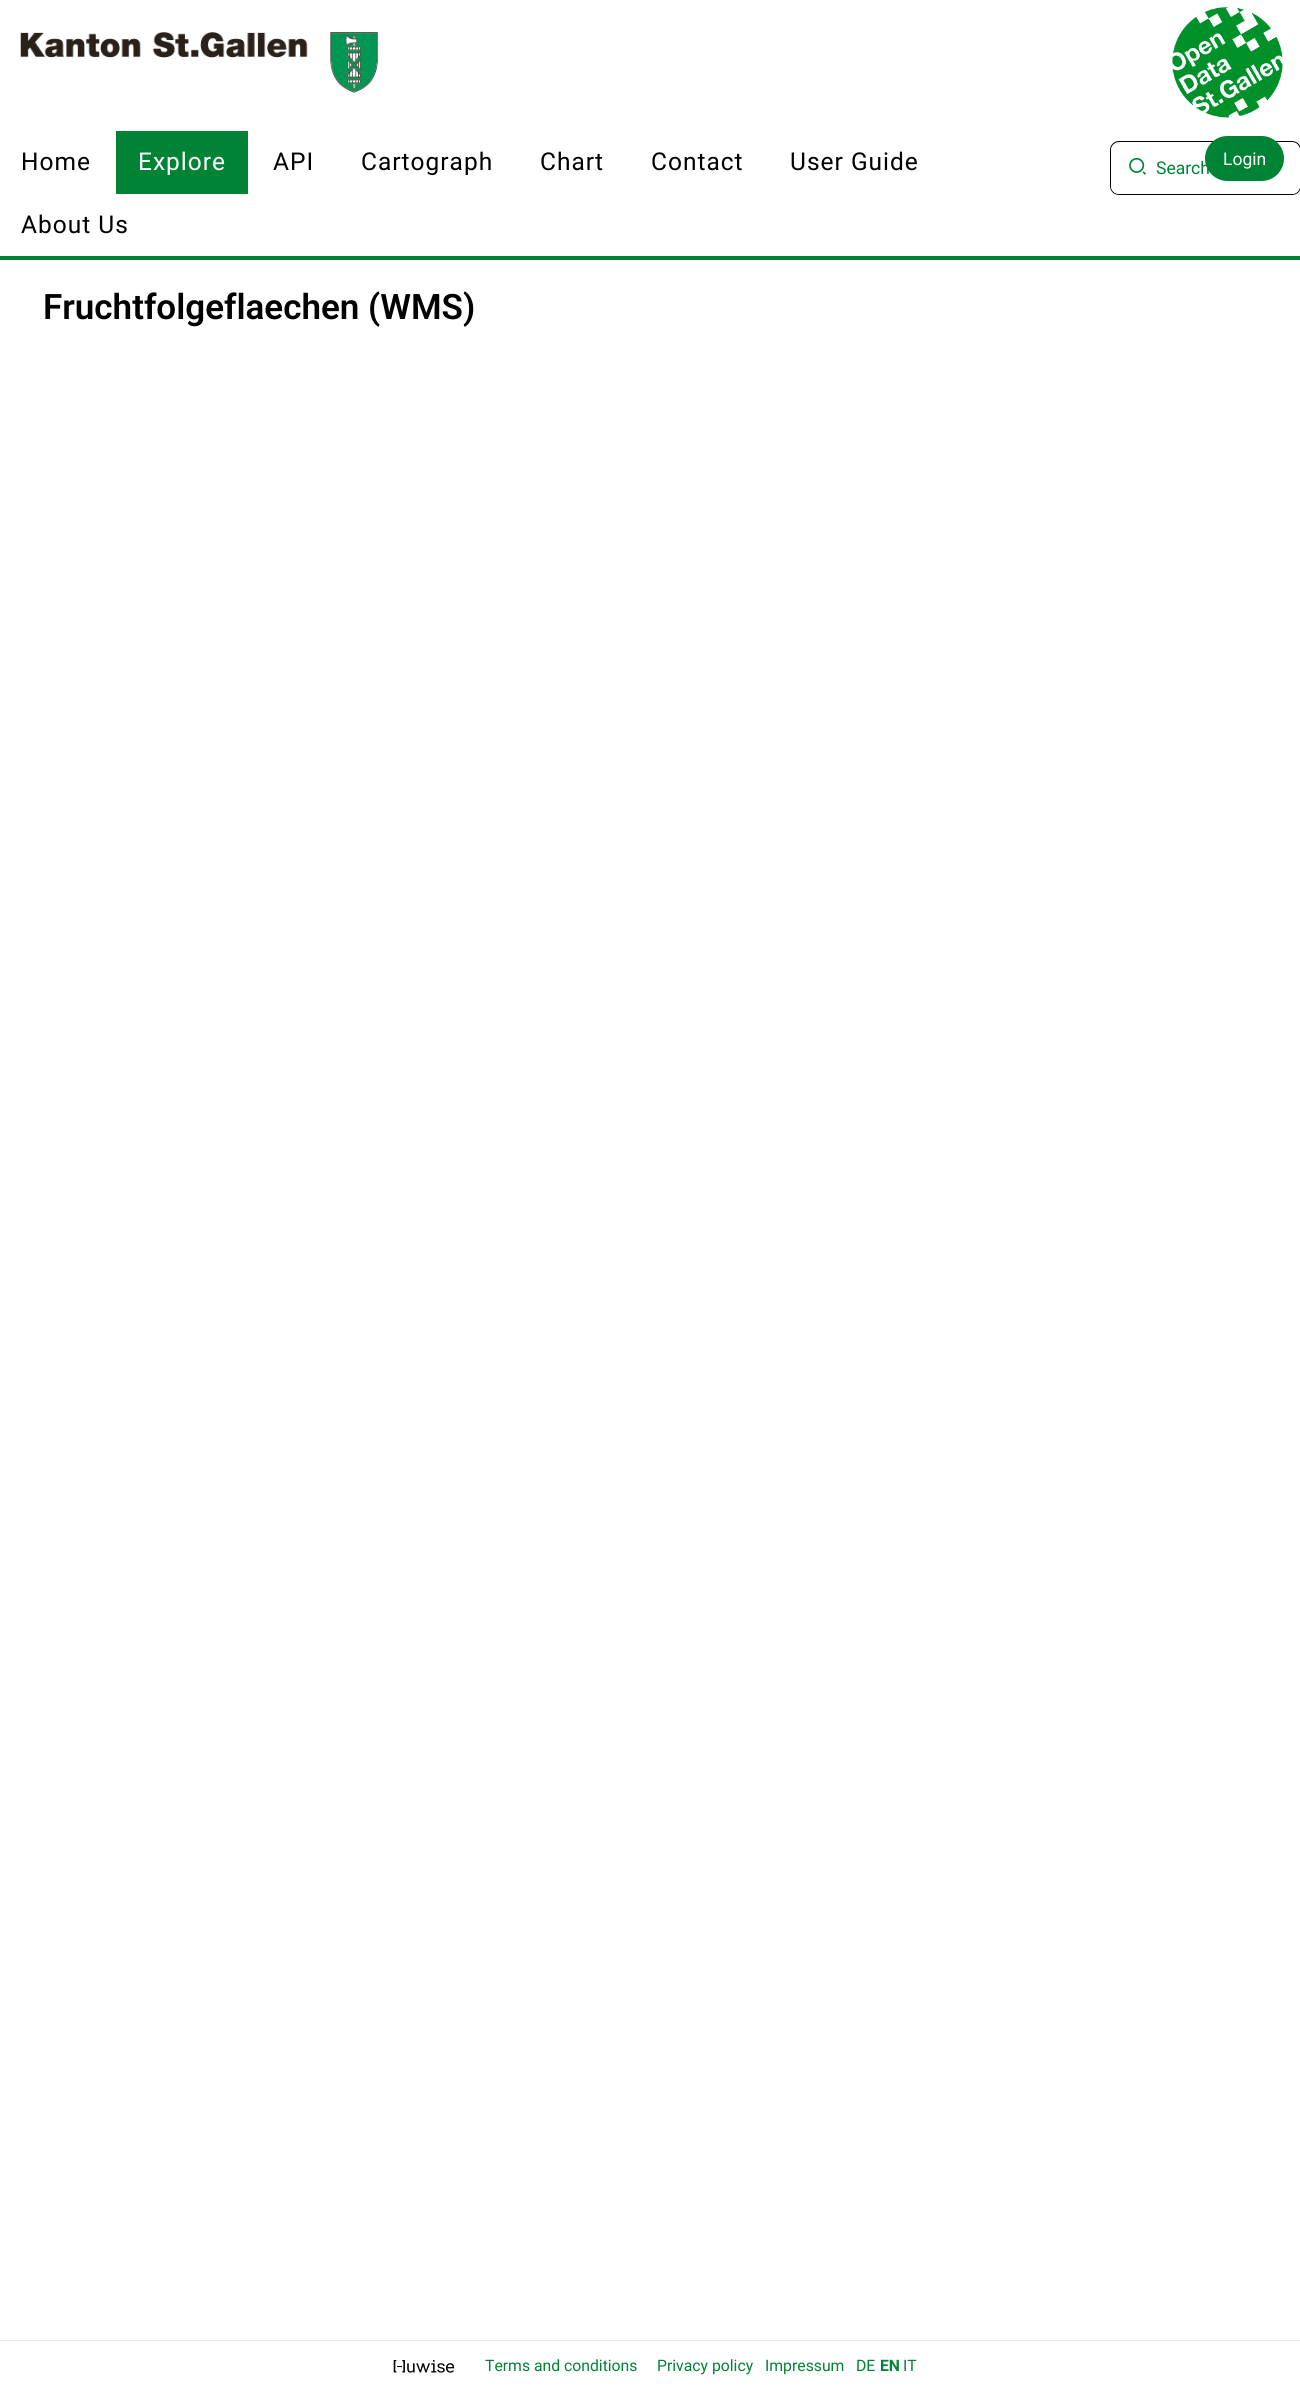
#include <cairo.h>
#include <math.h>
#include <stddef.h>

static cairo_t *c;
static void C(unsigned color){cairo_set_source_rgb(c, (color >> 16) / 255.0, (color >> 8 & 255) / 255.0, (color & 255) / 255.0);}
static void F(const char *family, double size, int italic, int bold){cairo_select_font_face(c, family, italic ? CAIRO_FONT_SLANT_ITALIC : CAIRO_FONT_SLANT_NORMAL,bold ? CAIRO_FONT_WEIGHT_BOLD : CAIRO_FONT_WEIGHT_NORMAL);cairo_set_font_size(c, size);}
static void T(double x, double y, const char *s){cairo_move_to(c, x, y);cairo_show_text(c, s);}
static void L(double x, double y, const char *s, double letter, double word){cairo_move_to(c, x, y);while (*s) {char ch[5] = {0};int n = 0;do ch[n++] = *s++; while ((*s & 0xC0) == 0x80);cairo_show_text(c, ch);cairo_rel_move_to(c, letter + word * (*ch == ' '), 0);}}
static void R(double x, double y, double w, double h){cairo_rectangle(c, x, y, w, h);cairo_fill(c);}
static void Q(double x, double y, double w, double h, double r){cairo_new_sub_path(c);cairo_arc(c, x + w - r, y + h - r, r, 0, M_PI / 2);cairo_arc(c, x + r, y + h - r, r, M_PI / 2, M_PI);cairo_arc(c, x + r, y + r, r, M_PI, 1.5 * M_PI);cairo_arc(c, x + w - r, y + r, r, 1.5 * M_PI, 2 * M_PI);cairo_close_path(c);}
static void I(const char *path, double x, double y, double w, double h){cairo_surface_t *image = cairo_image_surface_create_from_png(path);cairo_save(c);cairo_set_source_surface(c, image, x, y);cairo_rectangle(c, x, y, w, h);cairo_fill(c);cairo_restore(c);cairo_surface_destroy(image);}
int main(void) {
cairo_surface_t *surface = cairo_image_surface_create(CAIRO_FORMAT_RGB24, 1300, 2390);
c = cairo_create(surface);
cairo_font_options_t *options = cairo_font_options_create();
cairo_font_options_set_hint_metrics(options, CAIRO_HINT_METRICS_OFF);
cairo_font_options_set_hint_style(options, CAIRO_HINT_STYLE_NONE);
cairo_set_font_options(c, options);
cairo_set_miter_limit(c, 4);
C(0xffffff);
cairo_paint(c);
I("1.png",20,32,358,61);
I("2.png",1172,7,111,111);
C(0x008334);
R(0,256,1300,4);
F("Roboto",24.5,0,0);
C(0x000000);
L(21,170,"Home",1,0);
C(0x008334);
R(116,131,132,63);
C(0xffffff);
L(138,170,"Explore",1,0);
C(0x000000);
L(273,170,"API",1,0);
L(361,170,"Cartograph",1,0);
L(540,170,"Chart",1,0);
L(651,170,"Contact",1,0);
L(790,170,"User Guide",1,0);
L(21,233,"About Us",1,0);
Q(1110.5,141.5,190,53,8.5);
cairo_set_line_width(c,1);
cairo_stroke(c);
C(0xffffff);
Q(1111,143,189,51,8);
cairo_fill(c);
I("3.png",1129,157,17,18);
F("Roboto",17.5,0,0);
C(0x008334);
T(1156,174,"Search");
Q(1205,136,79,45,22.5);
cairo_fill(c);
C(0xffffff);
T(1223,165,"Login");
F("Roboto SemiBold",35,0,0);
C(0x000000);
T(43,319,"Fruchtfolgeflaechen (WMS)");
C(0xe6e6e6);
R(0,2340,1300,1);
I("4.png",393,2360,62,13);
F("Roboto",15.75,0,0);
C(0x008334);
T(485,2371,"Terms and conditions");
T(657,2371,"Privacy policy");
T(765,2371,"Impressum");
T(856,2371,"DE");
F("Roboto",15.75,0,1);
T(880,2371,"EN");
F("Roboto",15.75,0,0);
T(903,2371,"IT");
cairo_surface_write_to_png(surface, "o.png");
cairo_font_options_destroy(options);
cairo_destroy(c);
cairo_surface_destroy(surface);
return 0;
}
